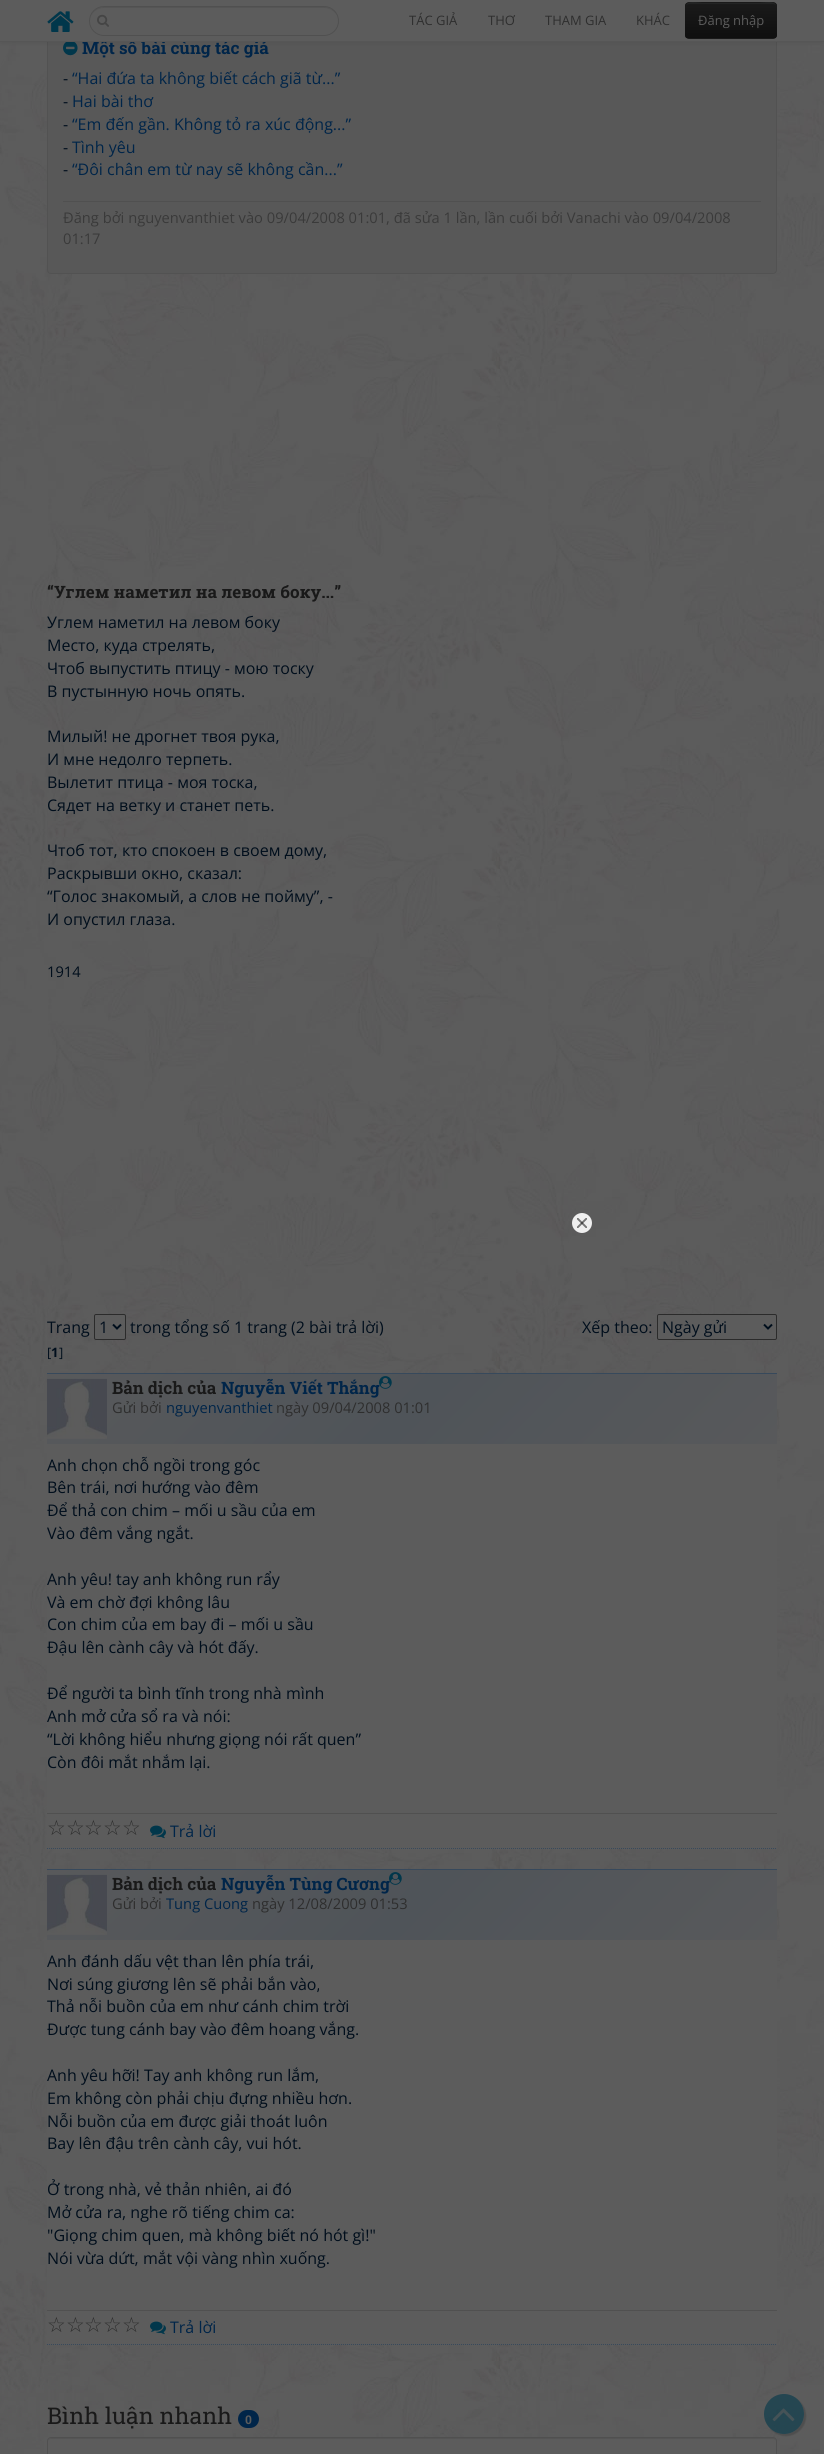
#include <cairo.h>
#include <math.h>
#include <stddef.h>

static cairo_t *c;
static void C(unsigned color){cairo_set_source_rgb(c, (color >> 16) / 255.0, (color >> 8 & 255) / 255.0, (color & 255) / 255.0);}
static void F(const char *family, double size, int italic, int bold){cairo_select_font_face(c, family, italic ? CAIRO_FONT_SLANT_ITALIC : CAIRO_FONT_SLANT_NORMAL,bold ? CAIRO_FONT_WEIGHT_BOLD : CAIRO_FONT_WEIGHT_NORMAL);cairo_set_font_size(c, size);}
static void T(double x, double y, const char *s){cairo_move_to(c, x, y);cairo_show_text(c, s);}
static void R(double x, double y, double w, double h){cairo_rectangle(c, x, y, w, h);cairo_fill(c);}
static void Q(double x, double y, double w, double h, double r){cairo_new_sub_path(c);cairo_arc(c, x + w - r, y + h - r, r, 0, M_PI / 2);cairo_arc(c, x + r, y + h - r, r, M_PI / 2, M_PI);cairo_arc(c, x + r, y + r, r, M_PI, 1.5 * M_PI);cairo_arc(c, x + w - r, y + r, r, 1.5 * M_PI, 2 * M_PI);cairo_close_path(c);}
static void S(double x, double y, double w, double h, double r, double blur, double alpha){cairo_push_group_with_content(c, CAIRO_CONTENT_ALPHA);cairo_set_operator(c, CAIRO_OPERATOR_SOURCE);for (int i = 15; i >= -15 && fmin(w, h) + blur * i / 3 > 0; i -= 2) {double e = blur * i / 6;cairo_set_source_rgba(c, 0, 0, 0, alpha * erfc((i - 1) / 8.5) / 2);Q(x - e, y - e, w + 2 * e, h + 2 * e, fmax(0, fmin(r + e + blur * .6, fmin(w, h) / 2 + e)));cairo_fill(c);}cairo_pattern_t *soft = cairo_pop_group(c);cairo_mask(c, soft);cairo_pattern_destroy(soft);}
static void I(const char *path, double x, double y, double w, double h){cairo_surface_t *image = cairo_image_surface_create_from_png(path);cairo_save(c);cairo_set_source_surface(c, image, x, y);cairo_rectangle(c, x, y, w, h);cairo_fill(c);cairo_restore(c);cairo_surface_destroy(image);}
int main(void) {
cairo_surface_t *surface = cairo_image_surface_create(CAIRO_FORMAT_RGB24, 824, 2454);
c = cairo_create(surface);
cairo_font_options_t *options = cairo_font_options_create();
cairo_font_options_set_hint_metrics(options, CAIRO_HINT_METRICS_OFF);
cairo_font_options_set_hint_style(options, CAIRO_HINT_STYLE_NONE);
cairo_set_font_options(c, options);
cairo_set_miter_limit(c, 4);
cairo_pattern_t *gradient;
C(0xffffff);
cairo_paint(c);
I("1.png",0,42,824,2412);
C(0x585858);
Q(47.5,-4.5,729,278,3.5);
cairo_fill_preserve(c);
C(0x525252);
cairo_set_line_width(c,1);
cairo_stroke(c);
I("5.png",63,42,15,14);
C(0x000000);
S(0,1,824,42,0,2.5,.07);
F("Roboto Slab",17,0,1);
C(0x002549);
T(82,54,"Một số bài cùng tác giả");
C(0x5c5c5c);
R(0,0,824,41);
C(0x565656);
R(0,41,824,1);
I("2.png",47,11,27,21);
C(0x555555);
cairo_new_path(c);
cairo_move_to(c,104,8);
cairo_line_to(c,324,8);
cairo_curve_to(c,332,8,338,14,338,21);
cairo_curve_to(c,338,14,332,7,324,7);
cairo_line_to(c,104,7);
cairo_curve_to(c,96,7,90,14,90,21);
cairo_curve_to(c,90,14,96,8,104,8);
cairo_close_path(c);
cairo_fill(c);
Q(89.5,6.5,249,29,14.5);
C(0x505050);
cairo_stroke(c);
I("3.png",97,14,12,13);
F("Open Sans",13,0,0);
C(0x2e2e2e);
T(409,25,"TÁC GIẢ");
T(488,25,"THƠ");
T(545,25,"THAM GIA");
T(636,25,"KHÁC");
C(0x1a1a1a);
Q(685,2,92,37,4);
cairo_fill(c);
cairo_save(c);
Q(685,2,92,37,4);
cairo_clip(c);
gradient = cairo_pattern_create_linear(731,3,731,38);
cairo_pattern_add_color_stop_rgba(gradient,0,0.102,0.102,0.102,1);
cairo_pattern_add_color_stop_rgba(gradient,1,0.059,0.059,0.059,1);
cairo_set_source(c,gradient);
cairo_pattern_destroy(gradient);
R(685,3,92,35);
cairo_restore(c);
C(0x232424);
cairo_new_path(c);
cairo_move_to(c,689,4);
cairo_line_to(c,773,4);
cairo_curve_to(c,775,4,776,5,776,7);
cairo_curve_to(c,776,-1,763,3,759,3);
cairo_line_to(c,703,3);
cairo_curve_to(c,699,3,686,-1,686,7);
cairo_curve_to(c,686,5,687,4,689,4);
cairo_close_path(c);
cairo_fill(c);
C(0x5c5c5c);
T(698,25,"Đăng nhập");
Q(47,2437,730,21,4);
cairo_fill(c);
C(0x555555);
cairo_new_path(c);
cairo_move_to(c,51,2439);
cairo_line_to(c,773,2439);
cairo_curve_to(c,775,2439,776,2440,776,2442);
cairo_curve_to(c,776,2440,775,2438,773,2438);
cairo_line_to(c,51,2438);
cairo_curve_to(c,49,2438,48,2440,48,2442);
cairo_curve_to(c,48,2440,49,2439,51,2439);
cairo_close_path(c);
cairo_fill(c);
Q(47.5,2437.5,729,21,3.5);
C(0x505050);
cairo_stroke(c);
cairo_save(c);
cairo_set_fill_rule(c,CAIRO_FILL_RULE_EVEN_ODD);
cairo_new_path(c);
cairo_move_to(c,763,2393);
cairo_line_to(c,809,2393);
cairo_line_to(c,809,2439);
cairo_line_to(c,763,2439);
cairo_close_path(c);
cairo_move_to(c,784,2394);
cairo_curve_to(c,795,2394,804,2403,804,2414);
cairo_curve_to(c,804,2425,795,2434,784,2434);
cairo_curve_to(c,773,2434,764,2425,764,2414);
cairo_curve_to(c,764,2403,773,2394,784,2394);
cairo_close_path(c);
cairo_clip(c);
C(0x454545);
S(766,2396,40,40,20,.5,.6);
cairo_restore(c);
cairo_set_source_rgba(c,0.004,0.216,0.29,0.6);
cairo_arc(c,784,2414,20,0,2 * M_PI);
cairo_fill(c);
I("4.png",772,2408,23,14);
F("Open Sans",16,0,0);
C(0x000e1c);
T(63,84,"-");
C(0x002549);
T(72,84,"“Hai đứa ta không biết cách giã từ...”");
C(0x000e1c);
T(63,107,"-");
C(0x002549);
T(72,107,"Hai bài thơ");
C(0x000e1c);
T(63,130,"-");
C(0x002549);
T(72,130,"“Em đến gần. Không tỏ ra xúc động...”");
C(0x000e1c);
T(63,153,"-");
C(0x002549);
T(72,153,"Tình yêu");
C(0x000e1c);
T(63,175,"-");
C(0x002549);
T(72,175,"“Đôi chân em từ nay sẽ không cần...”");
C(0x505050);
R(63,201,698,1);
F("Open Sans",14.7,0,0);
C(0x3a3a3a);
T(63,223,"Đăng bởi nguyenvanthiet vào 09/04/2008 01:01, đã sửa 1 lần, lần cuối bởi Vanachi vào 09/04/2008");
T(63,244,"01:17");
F("Roboto Slab",17,0,1);
C(0x191919);
T(47,598,"“Углем наметил на левом боку...”");
F("Open Sans",16,0,0);
C(0x000e1c);
T(47,628,"Углем наметил на левом боку");
T(47,651,"Место, куда стрелять,");
T(47,674,"Чтоб выпустить птицу - мою тоску");
T(47,697,"В пустынную ночь опять.");
T(47,742,"Милый! не дрогнет твоя рука,");
T(47,765,"И мне недолго терпеть.");
T(47,788,"Вылетит птица - моя тоска,");
T(47,811,"Сядет на ветку и станет петь.");
T(47,856,"Чтоб тот, кто спокоен в своем дому,");
T(47,879,"Раскрывши окно, сказал:");
T(47,902,"“Голос знакомый, а слов не пойму”, -");
T(47,925,"И опустил глаза.");
F("Open Sans",14.7,0,0);
T(47,977,"1914");
F("Open Sans",16,0,0);
T(47,1333,"Trang");
C(0x5c5c5c);
Q(94.5,1314.5,31,25,1.5);
cairo_fill_preserve(c);
C(0x2b2b2b);
cairo_stroke(c);
cairo_new_path(c);
cairo_move_to(c,113,1324.5);
cairo_line_to(c,117,1328.5);
cairo_line_to(c,121,1324.5);
C(0x000e1c);
cairo_set_line_width(c,2);
cairo_stroke(c);
T(99,1333,"1");
T(130,1333,"trong tổng số 1 trang (2 bài trả lời)");
F("Open Sans",13,0,0);
T(47,1357,"[");
F("Open Sans",13,0,1);
T(51,1357,"1");
F("Open Sans",13,0,0);
T(59,1357,"]");
F("Open Sans",16,0,0);
T(582,1333,"Xếp theo:");
C(0x5c5c5c);
Q(657.5,1314.5,119,25,1.5);
cairo_fill_preserve(c);
C(0x2b2b2b);
cairo_set_line_width(c,1);
cairo_stroke(c);
cairo_new_path(c);
cairo_move_to(c,764,1324.5);
cairo_line_to(c,768,1328.5);
cairo_line_to(c,772,1324.5);
C(0x000e1c);
cairo_set_line_width(c,2);
cairo_stroke(c);
T(662,1333,"Ngày gửi");
C(0x5c5c5c);
R(47,1444,730,405);
C(0x37495c);
R(47,1373,730,1);
cairo_new_path(c);
cairo_move_to(c,47,1848.5);
cairo_line_to(c,777,1848.5);
cairo_set_line_width(c,1);
cairo_set_dash(c,(double[]){1,1},2,0);
cairo_stroke(c);
gradient = cairo_pattern_create_linear(612,1609,212,1209);
cairo_pattern_add_color_stop_rgba(gradient,0,0.345,0.349,0.357,1);
cairo_pattern_add_color_stop_rgba(gradient,.5,0.31,0.329,0.349,1);
cairo_pattern_add_color_stop_rgba(gradient,1,0.345,0.349,0.357,1);
cairo_set_source(c,gradient);
cairo_pattern_destroy(gradient);
R(47,1374,730,70);
I("6.png",47,1378,60,61);
F("Roboto Slab",17,0,1);
C(0x191919);
T(112,1394,"Bản dịch của");
C(0x002549);
T(221,1394,"Nguyễn Viết Thắng");
I("7.png",379,1376,13,13);
F("Open Sans",14.7,0,0);
C(0x2e2e2e);
T(112,1413,"Gửi bởi");
C(0x002549);
T(166,1413,"nguyenvanthiet");
C(0x2e2e2e);
T(276,1413,"ngày 09/04/2008 01:01");
F("Open Sans",16,0,0);
C(0x000e1c);
T(47,1471,"Anh chọn chỗ ngồi trong góc");
T(47,1493,"Bên trái, nơi hướng vào đêm");
T(47,1516,"Để thả con chim – mối u sầu của em");
T(47,1539,"Vào đêm vắng ngắt.");
T(47,1585,"Anh yêu! tay anh không run rẩy");
T(47,1608,"Và em chờ đợi không lâu");
T(47,1630,"Con chim của em bay đi – mối u sầu");
T(47,1653,"Đậu lên cành cây và hót đấy.");
T(47,1699,"Để người ta bình tĩnh trong nhà mình");
T(47,1722,"Anh mở cửa sổ ra và nói:");
T(47,1745,"“Lời không hiểu nhưng giọng nói rất quen”");
T(47,1768,"Còn đôi mắt nhắm lại.");
C(0x505050);
R(47,1813,730,1);
F("DejaVu Sans",21,0,0);
C(0x2e2e2e);
T(47,1835,"☆");
T(66,1835,"☆");
T(84,1835,"☆");
T(103,1835,"☆");
T(122,1835,"☆");
I("8.png",150,1825,16,14);
F("Open Sans",16,0,0);
C(0x002549);
T(170,1837,"Trả lời");
C(0x5c5c5c);
R(47,1940,730,405);
C(0x37495c);
R(47,1869,730,1);
cairo_new_path(c);
cairo_move_to(c,47,2344.5);
cairo_line_to(c,777,2344.5);
cairo_stroke(c);
gradient = cairo_pattern_create_linear(612,2105,212,1705);
cairo_pattern_add_color_stop_rgba(gradient,0,0.345,0.349,0.357,1);
cairo_pattern_add_color_stop_rgba(gradient,.5,0.31,0.329,0.349,1);
cairo_pattern_add_color_stop_rgba(gradient,1,0.345,0.349,0.357,1);
cairo_set_source(c,gradient);
cairo_pattern_destroy(gradient);
R(47,1870,730,70);
I("6.png",47,1874,60,61);
F("Roboto Slab",17,0,1);
C(0x191919);
T(112,1890,"Bản dịch của");
C(0x002549);
T(221,1890,"Nguyễn Tùng Cương");
I("9.png",389,1872,13,13);
F("Open Sans",14.7,0,0);
C(0x2e2e2e);
T(112,1909,"Gửi bởi");
C(0x002549);
T(166,1909,"Tung Cuong");
C(0x2e2e2e);
T(252,1909,"ngày 12/08/2009 01:53");
F("Open Sans",16,0,0);
C(0x000e1c);
T(47,1967,"Anh đánh dấu vệt than lên phía trái,");
T(47,1990,"Nơi súng giương lên sẽ phải bắn vào,");
T(47,2012,"Thả nỗi buồn của em như cánh chim trời");
T(47,2035,"Được tung cánh bay vào đêm hoang vắng.");
T(47,2081,"Anh yêu hỡi! Tay anh không run lắm,");
T(47,2104,"Em không còn phải chịu đựng nhiều hơn.");
T(47,2127,"Nỗi buồn của em được giải thoát luôn");
T(47,2149,"Bay lên đậu trên cành cây, vui hót.");
T(47,2195,"Ở trong nhà, vẻ thản nhiên, ai đó");
T(47,2218,"Mở cửa ra, nghe rõ tiếng chim ca:");
T(47,2241,"\"Giọng chim quen, mà không biết nó hót gì!\"");
T(47,2264,"Nói vừa dứt, mắt vội vàng nhìn xuống.");
C(0x505050);
R(47,2310,730,1);
F("DejaVu Sans",21,0,0);
C(0x2e2e2e);
T(47,2332,"☆");
T(66,2332,"☆");
T(84,2332,"☆");
T(103,2332,"☆");
T(122,2332,"☆");
I("8.png",150,2321,16,14);
F("Open Sans",16,0,0);
C(0x002549);
T(170,2333,"Trả lời");
F("Roboto Slab",23,0,0);
C(0x191919);
T(47,2424,"Bình luận nhanh");
C(0x002549);
Q(238,2410,21,18,9);
cairo_fill(c);
F("Roboto Slab",12,0,1);
C(0x5c5c5c);
T(245,2424,"0");
C(0xefefef);
cairo_new_path(c);
cairo_arc(c,582,1223,8.5,0,2 * M_PI);
cairo_fill_preserve(c);
cairo_set_line_width(c,3);
cairo_set_dash(c,NULL,0,0);
cairo_stroke(c);
I("10.png",577,1218,10,10);
cairo_surface_write_to_png(surface, "o.png");
cairo_font_options_destroy(options);
cairo_destroy(c);
cairo_surface_destroy(surface);
return 0;
}
